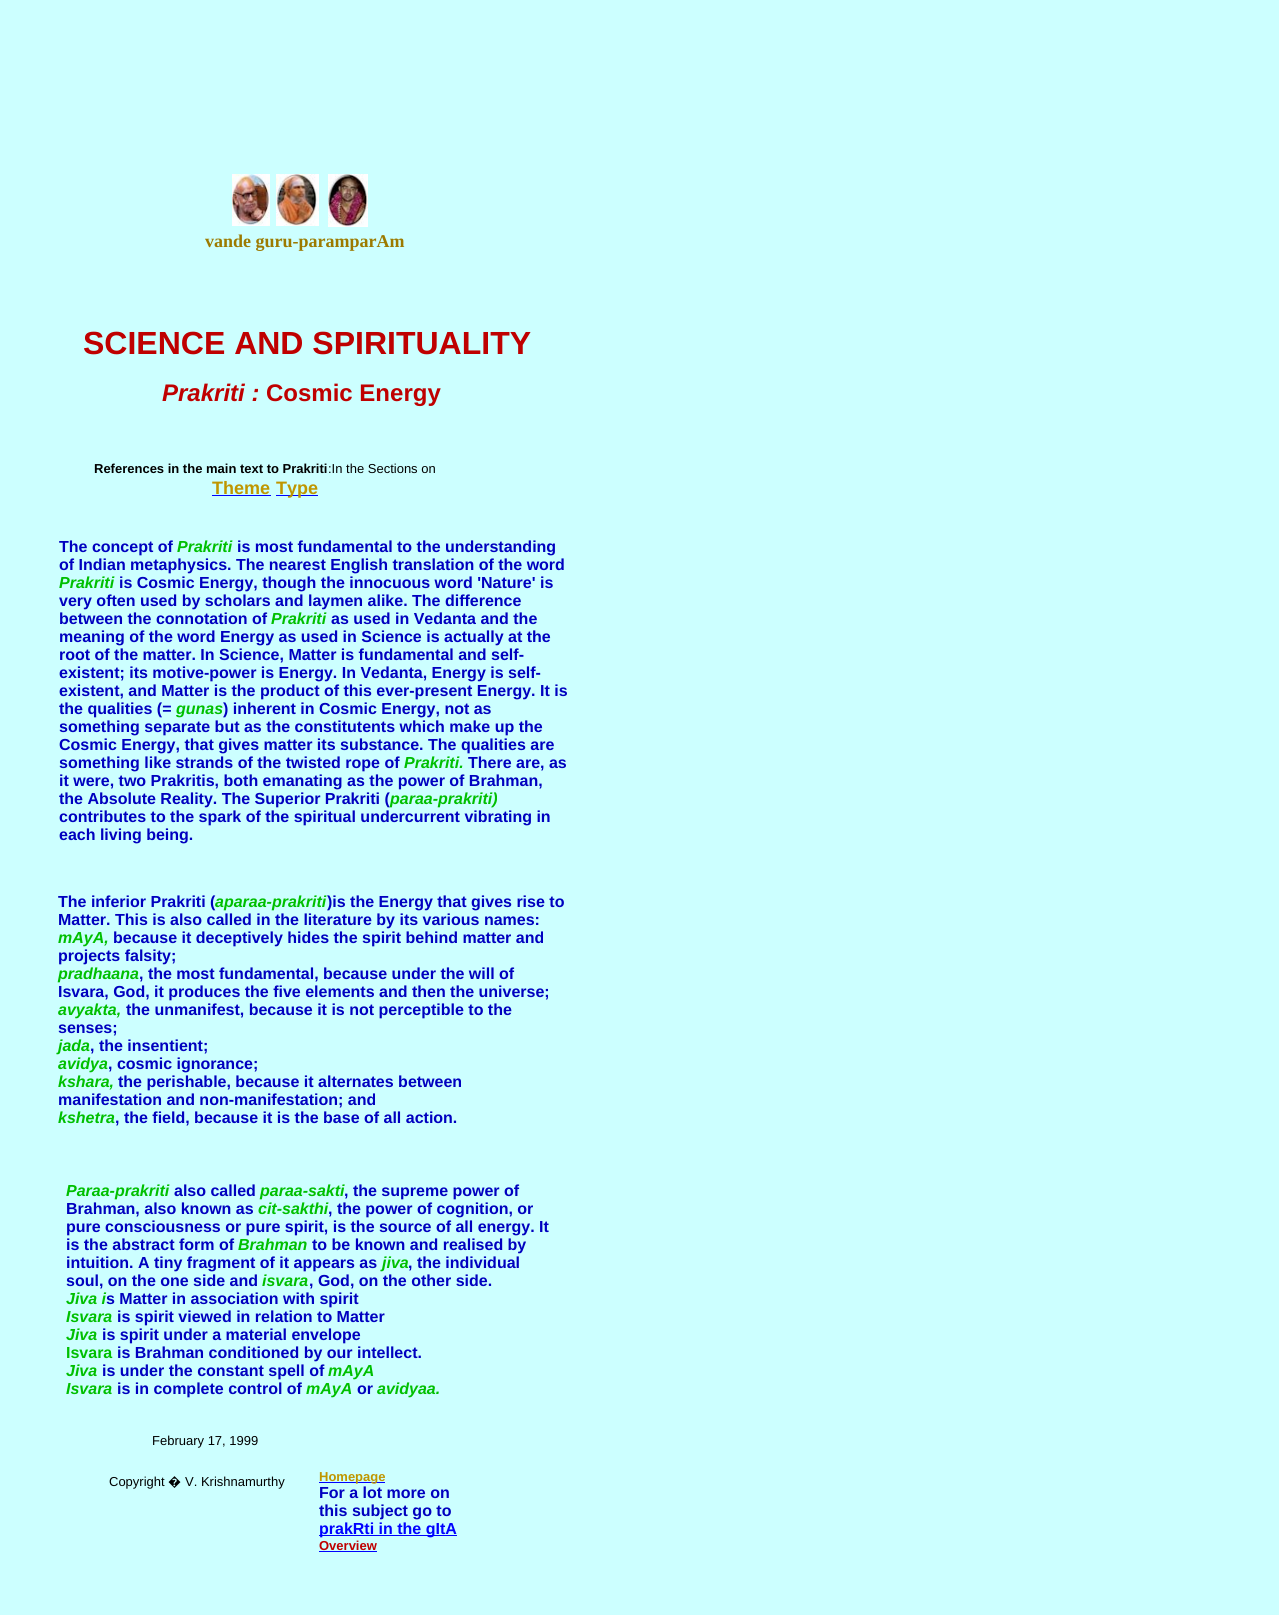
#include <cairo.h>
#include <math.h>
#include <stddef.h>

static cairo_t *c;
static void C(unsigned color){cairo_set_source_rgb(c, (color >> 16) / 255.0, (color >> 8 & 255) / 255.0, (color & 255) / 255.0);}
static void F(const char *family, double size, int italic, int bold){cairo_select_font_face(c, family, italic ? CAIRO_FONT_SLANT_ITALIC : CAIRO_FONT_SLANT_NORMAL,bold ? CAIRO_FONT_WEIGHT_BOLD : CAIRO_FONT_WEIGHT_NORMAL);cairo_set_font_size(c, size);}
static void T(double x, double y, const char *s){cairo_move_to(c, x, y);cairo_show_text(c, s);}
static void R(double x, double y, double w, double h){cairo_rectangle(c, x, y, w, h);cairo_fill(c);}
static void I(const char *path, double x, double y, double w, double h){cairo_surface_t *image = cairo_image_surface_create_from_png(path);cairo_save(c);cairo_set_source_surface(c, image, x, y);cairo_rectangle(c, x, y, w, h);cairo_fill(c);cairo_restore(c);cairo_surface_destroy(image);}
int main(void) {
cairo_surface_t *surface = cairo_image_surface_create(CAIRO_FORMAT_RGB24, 1279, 1615);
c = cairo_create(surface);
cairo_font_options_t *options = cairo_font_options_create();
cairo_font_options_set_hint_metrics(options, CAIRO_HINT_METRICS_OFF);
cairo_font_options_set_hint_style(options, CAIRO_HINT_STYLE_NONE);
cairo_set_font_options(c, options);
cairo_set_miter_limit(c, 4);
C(0xccffff);
cairo_paint(c);
I("1.png",232,174,38,52);
I("2.png",276,174,43,52);
I("3.png",328,174,40,53);
F("Liberation Serif",18,0,1);
C(0x9c7a00);
T(205,247,"vande guru-paramparAm");
F("Liberation Sans",32,0,1);
C(0xbf0000);
T(83,354,"SCIENCE AND SPIRITUALITY");
F("Liberation Sans",24,1,1);
T(162,401,"Prakriti :");
F("Liberation Sans",24,0,1);
T(266,401,"Cosmic Energy");
F("Liberation Sans",13,0,1);
C(0x000000);
T(94,473,"References in the main text to Prakriti");
F("Liberation Sans",13,0,0);
T(328,473,":In the Sections on");
F("Liberation Sans",18,0,1);
C(0xbf9600);
T(212,494,"Theme");
C(0x0000ff);
R(212,495,59,1);
R(276,495,42,1);
C(0xbf9600);
T(276,494,"Type");
F("Liberation Sans",16,0,1);
C(0x0000bf);
T(59,552,"The concept of");
F("Liberation Sans",16,1,1);
C(0x00bf00);
T(177,552,"Prakriti");
F("Liberation Sans",16,0,1);
C(0x0000bf);
T(237,552,"is most fundamental to the understanding");
T(59,570,"of Indian metaphysics. The nearest English translation of the word");
F("Liberation Sans",16,1,1);
C(0x00bf00);
T(59,588,"Prakriti");
F("Liberation Sans",16,0,1);
C(0x0000bf);
T(119,588,"is Cosmic Energy, though the innocuous word 'Nature' is");
T(59,606,"very often used by scholars and laymen alike. The difference");
T(59,624,"between the connotation of");
F("Liberation Sans",16,1,1);
C(0x00bf00);
T(271,624,"Prakriti");
F("Liberation Sans",16,0,1);
C(0x0000bf);
T(331,624,"as used in Vedanta and the");
T(59,642,"meaning of the word Energy as used in Science is actually at the");
T(59,660,"root of the matter. In Science, Matter is fundamental and self-");
T(59,678,"existent; its motive-power is Energy. In Vedanta, Energy is self-");
T(59,696,"existent, and Matter is the product of this ever-present Energy. It is");
T(59,714,"the qualities (=");
F("Liberation Sans",16,1,1);
C(0x00bf00);
T(176,714,"gunas");
F("Liberation Sans",16,0,1);
C(0x0000bf);
T(223,714,") inherent in Cosmic Energy, not as");
T(59,732,"something separate but as the constitutents which make up the");
T(59,750,"Cosmic Energy, that gives matter its substance. The qualities are");
T(59,768,"something like strands of the twisted rope of");
F("Liberation Sans",16,1,1);
C(0x00bf00);
T(404,768,"Prakriti.");
F("Liberation Sans",16,0,1);
C(0x0000bf);
T(468,768,"There are, as");
T(59,786,"it were, two Prakritis, both emanating as the power of Brahman,");
T(59,804,"the Absolute Reality. The Superior Prakriti (");
F("Liberation Sans",16,1,1);
C(0x00bf00);
T(390,804,"paraa-prakriti)");
F("Liberation Sans",16,0,1);
C(0x0000bf);
T(59,822,"contributes to the spark of the spiritual undercurrent vibrating in");
T(59,840,"each living being.");
T(58,907,"The inferior Prakriti (");
F("Liberation Sans",16,1,1);
C(0x00bf00);
T(215,907,"aparaa-prakriti");
F("Liberation Sans",16,0,1);
C(0x0000bf);
T(327,907,")is the Energy that gives rise to");
T(58,925,"Matter. This is also called in the literature by its various names:");
F("Liberation Sans",16,1,1);
C(0x00bf00);
T(58,943,"mAyA,");
F("Liberation Sans",16,0,1);
C(0x0000bf);
T(113,943,"because it deceptively hides the spirit behind matter and");
T(58,961,"projects falsity;");
F("Liberation Sans",16,1,1);
C(0x00bf00);
T(58,979,"pradhaana");
F("Liberation Sans",16,0,1);
C(0x0000bf);
T(139,979,", the most fundamental, because under the will of");
T(58,997,"Isvara, God, it produces the five elements and then the universe;");
F("Liberation Sans",16,1,1);
C(0x00bf00);
T(58,1015,"avyakta,");
F("Liberation Sans",16,0,1);
C(0x0000bf);
T(126,1015,"the unmanifest, because it is not perceptible to the");
T(58,1033,"senses;");
F("Liberation Sans",16,1,1);
C(0x00bf00);
T(58,1051,"jada");
F("Liberation Sans",16,0,1);
C(0x0000bf);
T(90,1051,", the insentient;");
F("Liberation Sans",16,1,1);
C(0x00bf00);
T(58,1069,"avidya");
F("Liberation Sans",16,0,1);
C(0x0000bf);
T(108,1069,", cosmic ignorance;");
F("Liberation Sans",16,1,1);
C(0x00bf00);
T(58,1087,"kshara,");
F("Liberation Sans",16,0,1);
C(0x0000bf);
T(118,1087,"the perishable, because it alternates between");
T(58,1105,"manifestation and non-manifestation; and");
F("Liberation Sans",16,1,1);
C(0x00bf00);
T(58,1123,"kshetra");
F("Liberation Sans",16,0,1);
C(0x0000bf);
T(115,1123,", the field, because it is the base of all action.");
F("Liberation Sans",16,1,1);
C(0x00bf00);
T(66,1196,"Paraa-prakriti");
F("Liberation Sans",16,0,1);
C(0x0000bf);
T(174,1196,"also called");
F("Liberation Sans",16,1,1);
C(0x00bf00);
T(260,1196,"paraa-sakti");
F("Liberation Sans",16,0,1);
C(0x0000bf);
T(344,1196,", the supreme power of");
T(66,1214,"Brahman, also known as");
F("Liberation Sans",16,1,1);
C(0x00bf00);
T(258,1214,"cit-sakthi");
F("Liberation Sans",16,0,1);
C(0x0000bf);
T(328,1214,", the power of cognition, or");
T(66,1232,"pure consciousness or pure spirit, is the source of all energy. It");
T(66,1250,"is the abstract form of");
F("Liberation Sans",16,1,1);
C(0x00bf00);
T(238,1250,"Brahman");
F("Liberation Sans",16,0,1);
C(0x0000bf);
T(312,1250,"to be known and realised by");
T(66,1268,"intuition. A tiny fragment of it appears as");
F("Liberation Sans",16,1,1);
C(0x00bf00);
T(382,1268,"jiva");
F("Liberation Sans",16,0,1);
C(0x0000bf);
T(408,1268,", the individual");
T(66,1286,"soul, on the one side and");
F("Liberation Sans",16,1,1);
C(0x00bf00);
T(262,1286,"isvara");
F("Liberation Sans",16,0,1);
C(0x0000bf);
T(309,1286,", God, on the other side.");
F("Liberation Sans",16,1,1);
C(0x00bf00);
T(66,1304,"Jiva i");
F("Liberation Sans",16,0,1);
C(0x0000bf);
T(106,1304,"s Matter in association with spirit");
F("Liberation Sans",16,1,1);
C(0x00bf00);
T(66,1322,"Isvara");
F("Liberation Sans",16,0,1);
C(0x0000bf);
T(117,1322,"is spirit viewed in relation to Matter");
F("Liberation Sans",16,1,1);
C(0x00bf00);
T(66,1340,"Jiva");
F("Liberation Sans",16,0,1);
C(0x0000bf);
T(102,1340,"is spirit under a material envelope");
C(0x00bf00);
T(66,1358,"Isvara");
C(0x0000bf);
T(117,1358,"is Brahman conditioned by our intellect.");
F("Liberation Sans",16,1,1);
C(0x00bf00);
T(66,1376,"Jiva");
F("Liberation Sans",16,0,1);
C(0x0000bf);
T(102,1376,"is under the constant spell of");
F("Liberation Sans",16,1,1);
C(0x00bf00);
T(328,1376,"mAyA");
T(66,1394,"Isvara");
F("Liberation Sans",16,0,1);
C(0x0000bf);
T(117,1394,"is in complete control of");
F("Liberation Sans",16,1,1);
C(0x00bf00);
T(306,1394,"mAyA");
F("Liberation Sans",16,0,1);
C(0x0000bf);
T(357,1394,"or");
F("Liberation Sans",16,1,1);
C(0x00bf00);
T(377,1394,"avidyaa.");
F("Liberation Sans",13,0,0);
C(0x000000);
T(152,1445,"February 17, 1999");
T(109,1486,"Copyright");
F("Noto Sans",13,0,0);
T(168,1486,"�");
F("Liberation Sans",13,0,0);
T(185,1486,"V. Krishnamurthy");
C(0x0000ff);
R(319,1482,66,1);
F("Liberation Sans",13,0,1);
C(0xbf9600);
T(319,1481,"Homepage");
F("Liberation Sans",16,0,1);
C(0x0000bf);
T(319,1498,"For a lot more on");
T(319,1516,"this subject go to");
C(0x0000ff);
R(319,1535,138,1);
T(319,1534,"prakRti in the gItA");
F("Liberation Sans",13,0,1);
C(0xbf0000);
T(319,1550,"Overview");
C(0x0000ff);
R(319,1551,58,1);
cairo_surface_write_to_png(surface, "o.png");
cairo_font_options_destroy(options);
cairo_destroy(c);
cairo_surface_destroy(surface);
return 0;
}
